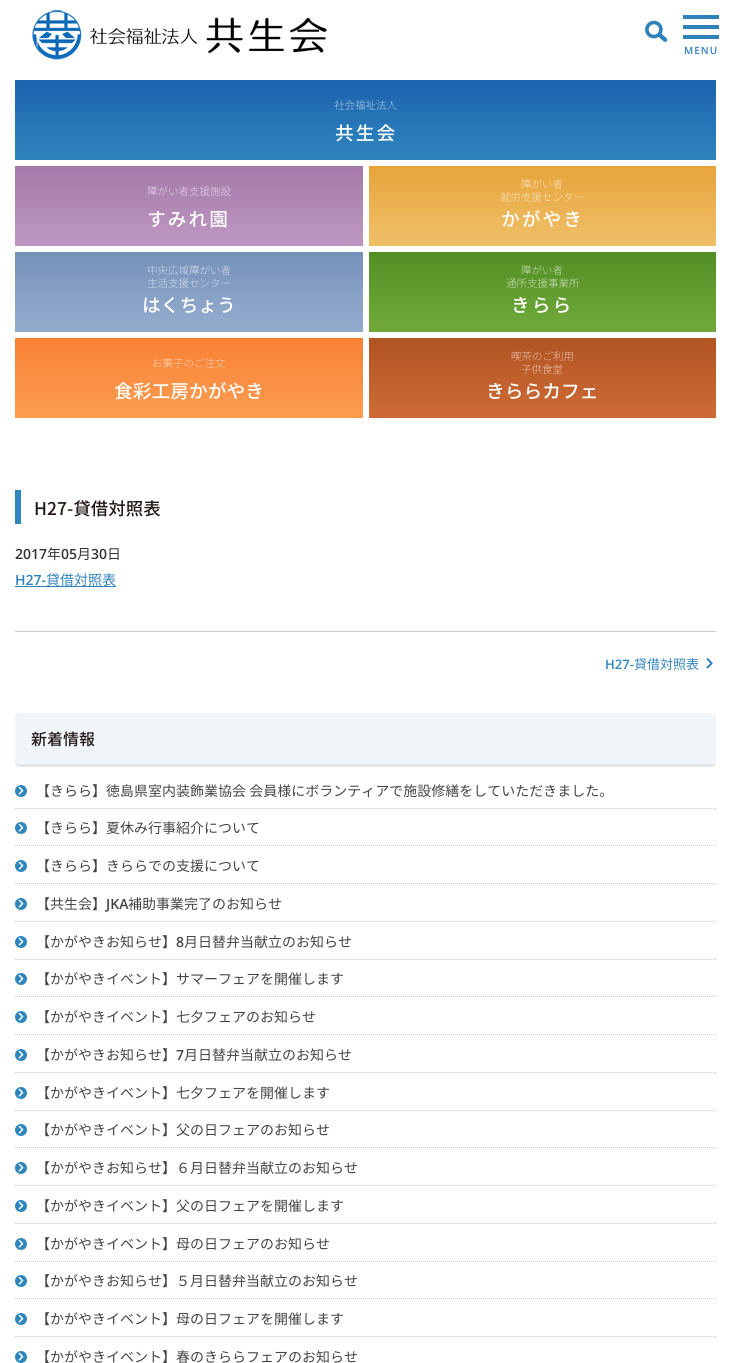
#include <cairo.h>
#include <math.h>
#include <stddef.h>

static cairo_t *c;
static void C(unsigned color){cairo_set_source_rgb(c, (color >> 16) / 255.0, (color >> 8 & 255) / 255.0, (color & 255) / 255.0);}
static void F(const char *family, double size, int italic, int bold){cairo_select_font_face(c, family, italic ? CAIRO_FONT_SLANT_ITALIC : CAIRO_FONT_SLANT_NORMAL,bold ? CAIRO_FONT_WEIGHT_BOLD : CAIRO_FONT_WEIGHT_NORMAL);cairo_set_font_size(c, size);}
static void T(double x, double y, const char *s){cairo_move_to(c, x, y);cairo_show_text(c, s);}
static void L(double x, double y, const char *s, double letter, double word){cairo_move_to(c, x, y);while (*s) {char ch[5] = {0};int n = 0;do ch[n++] = *s++; while ((*s & 0xC0) == 0x80);cairo_show_text(c, ch);cairo_rel_move_to(c, letter + word * (*ch == ' '), 0);}}
static void R(double x, double y, double w, double h){cairo_rectangle(c, x, y, w, h);cairo_fill(c);}
static void Q(double x, double y, double w, double h, double r){cairo_new_sub_path(c);cairo_arc(c, x + w - r, y + h - r, r, 0, M_PI / 2);cairo_arc(c, x + r, y + h - r, r, M_PI / 2, M_PI);cairo_arc(c, x + r, y + r, r, M_PI, 1.5 * M_PI);cairo_arc(c, x + w - r, y + r, r, 1.5 * M_PI, 2 * M_PI);cairo_close_path(c);}
static void I(const char *path, double x, double y, double w, double h){cairo_surface_t *image = cairo_image_surface_create_from_png(path);cairo_save(c);cairo_set_source_surface(c, image, x, y);cairo_rectangle(c, x, y, w, h);cairo_fill(c);cairo_restore(c);cairo_surface_destroy(image);}
int main(void) {
cairo_surface_t *surface = cairo_image_surface_create(CAIRO_FORMAT_RGB24, 731, 1363);
c = cairo_create(surface);
cairo_font_options_t *options = cairo_font_options_create();
cairo_font_options_set_hint_metrics(options, CAIRO_HINT_METRICS_OFF);
cairo_font_options_set_hint_style(options, CAIRO_HINT_STYLE_NONE);
cairo_set_font_options(c, options);
cairo_set_miter_limit(c, 4);
cairo_pattern_t *gradient;
C(0xffffff);
cairo_paint(c);
C(0x2e82bc);
R(683,15,36,4);
R(683,25,36,4);
R(683,35,36,4);
F("Open Sans SemiBold",10,0,0);
L(684,54,"MENU",1,0);
I("1.png",32,10,295,50);
I("2.png",645,20,23,22);
gradient = cairo_pattern_create_linear(366,80,366,160);
cairo_pattern_add_color_stop_rgba(gradient,0,0.11,0.384,0.682,1);
cairo_pattern_add_color_stop_rgba(gradient,.9,0.18,0.51,0.737,1);
cairo_set_source(c,gradient);
cairo_pattern_destroy(gradient);
R(15,80,701,80);
F("Noto Sans JP Thin",10.5,0,0);
C(0xffffff);
T(334,109,"社会福祉法人");
F("Noto Sans JP Medium",18.75,0,0);
L(335,140,"共生会",2,0);
gradient = cairo_pattern_create_linear(189,166,189,246);
cairo_pattern_add_color_stop_rgba(gradient,0,0.643,0.475,0.663,1);
cairo_pattern_add_color_stop_rgba(gradient,.9,0.733,0.584,0.749,1);
cairo_set_source(c,gradient);
cairo_pattern_destroy(gradient);
R(15,166,348,80);
F("Noto Sans JP Thin",10.5,0,0);
C(0xffffff);
T(147,195,"障がい者支援施設");
F("Noto Sans JP Medium",18.75,0,0);
L(147,226,"すみれ園",2,0);
gradient = cairo_pattern_create_linear(543,166,543,246);
cairo_pattern_add_color_stop_rgba(gradient,0,0.906,0.643,0.227,1);
cairo_pattern_add_color_stop_rgba(gradient,.9,0.937,0.741,0.396,1);
cairo_set_source(c,gradient);
cairo_pattern_destroy(gradient);
R(369,166,347,80);
F("Noto Sans JP Thin",10.5,0,0);
C(0xffffff);
T(521,188,"障がい者");
T(500,201,"就労支援センター");
F("Noto Sans JP Medium",18.75,0,0);
L(501,226,"かがやき",2,0);
gradient = cairo_pattern_create_linear(189,252,189,332);
cairo_pattern_add_color_stop_rgba(gradient,0,0.463,0.569,0.729,1);
cairo_pattern_add_color_stop_rgba(gradient,.9,0.573,0.667,0.8,1);
cairo_set_source(c,gradient);
cairo_pattern_destroy(gradient);
R(15,252,348,80);
F("Noto Sans JP Thin",10.5,0,0);
C(0xffffff);
T(147,274,"中央広域障がい者");
T(147,287,"生活支援センター");
F("Noto Sans JP Medium",18.75,0,0);
T(142,312,"はくちょう");
gradient = cairo_pattern_create_linear(543,252,543,332);
cairo_pattern_add_color_stop_rgba(gradient,0,0.325,0.557,0.145,1);
cairo_pattern_add_color_stop_rgba(gradient,.9,0.435,0.659,0.224,1);
cairo_set_source(c,gradient);
cairo_pattern_destroy(gradient);
R(369,252,347,80);
F("Noto Sans JP Thin",10.5,0,0);
C(0xffffff);
T(521,274,"障がい者");
T(506,287,"通所支援事業所");
F("Noto Sans JP Medium",18.75,0,0);
L(511,312,"きらら",2,0);
gradient = cairo_pattern_create_linear(189,338,189,418);
cairo_pattern_add_color_stop_rgba(gradient,0,0.973,0.502,0.2,1);
cairo_pattern_add_color_stop_rgba(gradient,.9,0.992,0.608,0.31,1);
cairo_set_source(c,gradient);
cairo_pattern_destroy(gradient);
R(15,338,348,80);
F("Noto Sans JP Thin",10.5,0,0);
C(0xffffff);
T(152,367,"お菓子のご注文");
F("Noto Sans JP Medium",18.75,0,0);
T(114,398,"食彩工房かがやき");
gradient = cairo_pattern_create_linear(543,338,543,418);
cairo_pattern_add_color_stop_rgba(gradient,0,0.69,0.329,0.133,1);
cairo_pattern_add_color_stop_rgba(gradient,.9,0.8,0.412,0.204,1);
cairo_set_source(c,gradient);
cairo_pattern_destroy(gradient);
R(369,338,347,80);
F("Noto Sans JP Thin",10.5,0,0);
C(0xffffff);
T(511,360,"喫茶のご利用");
T(521,373,"子供食堂");
F("Noto Sans JP Medium",18.75,0,0);
T(486,398,"きららカフェ");
C(0x2e86bc);
R(15,490,6,34);
F("Noto Sans JP Medium",17.5,0,0);
C(0x231815);
T(34,515,"H27-貸借対照表");
F("Open Sans SemiBold",14,0,0);
C(0x333333);
T(15,559,"2017");
F("Noto Sans JP",14,0,0);
T(47,559,"年");
F("Open Sans SemiBold",14,0,0);
T(61,559,"05");
F("Noto Sans JP",14,0,0);
T(77,559,"月");
F("Open Sans SemiBold",14,0,0);
T(91,559,"30");
F("Noto Sans JP",14,0,0);
T(107,559,"日");
F("Open Sans SemiBold",14,0,0);
C(0x2e82bc);
T(15,585,"H27-");
R(15,586,101,1);
F("Noto Sans JP",14,0,0);
T(46,585,"貸借対照表");
C(0xcccccc);
R(15,631,701,1);
F("Open Sans SemiBold",13,0,0);
C(0x2e82bc);
T(605,669,"H27-");
F("Noto Sans JP",13,0,0);
T(634,669,"貸借対照表");
I("3.png",706,658,7,11);
C(0xe6e6e6);
cairo_new_path(c);
cairo_move_to(c,15,760);
cairo_line_to(c,15,763);
cairo_curve_to(c,15,765,17,767,19,767);
cairo_line_to(c,712,767);
cairo_curve_to(c,714,767,716,765,716,763);
cairo_line_to(c,716,760);
cairo_curve_to(c,716,762,714,764,712,764);
cairo_line_to(c,19,764);
cairo_curve_to(c,17,764,15,762,15,760);
cairo_close_path(c);
cairo_fill(c);
C(0xf0f5fa);
Q(15,713,701,51,4);
cairo_fill(c);
F("Noto Sans JP Medium",16,0,0);
C(0x231815);
T(31,745,"新着情報");
cairo_new_path(c);
cairo_move_to(c,15,808.5);
cairo_line_to(c,716,808.5);
C(0xcccccc);
cairo_set_line_width(c,1);
cairo_set_dash(c,(double[]){1,1},2,0);
cairo_stroke(c);
C(0x2e86bc);
cairo_arc(c,21,791,6,0,2 * M_PI);
cairo_fill(c);
I("4.png",18,786,6,9);
F("Noto Sans JP",14,0,0);
C(0x444444);
T(36,796,"【きらら】徳島県室内装飾業協会 会員様にボランティアで施設修繕をしていただきました。");
cairo_new_path(c);
cairo_move_to(c,15,845.5);
cairo_line_to(c,716,845.5);
C(0xcccccc);
cairo_stroke(c);
C(0x2e86bc);
cairo_arc(c,21,828,6,0,2 * M_PI);
cairo_fill(c);
I("4.png",18,823,6,9);
C(0x444444);
T(36,833,"【きらら】夏休み行事紹介について");
cairo_new_path(c);
cairo_move_to(c,15,883.5);
cairo_line_to(c,716,883.5);
C(0xcccccc);
cairo_stroke(c);
C(0x2e86bc);
cairo_arc(c,21,866,6,0,2 * M_PI);
cairo_fill(c);
I("4.png",18,861,6,9);
C(0x444444);
T(36,871,"【きらら】きららでの支援について");
cairo_new_path(c);
cairo_move_to(c,15,921.5);
cairo_line_to(c,716,921.5);
C(0xcccccc);
cairo_stroke(c);
C(0x2e86bc);
cairo_arc(c,21,904,6,0,2 * M_PI);
cairo_fill(c);
I("4.png",18,899,6,9);
C(0x444444);
T(36,909,"【共生会】");
F("Open Sans SemiBold",14,0,0);
T(106,909,"JKA");
F("Noto Sans JP",14,0,0);
T(128,909,"補助事業完了のお知らせ");
cairo_new_path(c);
cairo_move_to(c,15,959.5);
cairo_line_to(c,716,959.5);
C(0xcccccc);
cairo_stroke(c);
C(0x2e86bc);
cairo_arc(c,21,942,6,0,2 * M_PI);
cairo_fill(c);
I("4.png",18,937,6,9);
C(0x444444);
T(36,947,"【かがやきお知らせ】");
F("Open Sans SemiBold",14,0,0);
T(176,947,"8");
F("Noto Sans JP",14,0,0);
T(184,947,"月日替弁当献立のお知らせ");
cairo_new_path(c);
cairo_move_to(c,15,996.5);
cairo_line_to(c,716,996.5);
C(0xcccccc);
cairo_stroke(c);
C(0x2e86bc);
cairo_arc(c,21,979,6,0,2 * M_PI);
cairo_fill(c);
I("4.png",18,974,6,9);
C(0x444444);
T(36,984,"【かがやきイベント】サマーフェアを開催します");
cairo_new_path(c);
cairo_move_to(c,15,1034.5);
cairo_line_to(c,716,1034.5);
C(0xcccccc);
cairo_stroke(c);
C(0x2e86bc);
cairo_arc(c,21,1017,6,0,2 * M_PI);
cairo_fill(c);
I("4.png",18,1012,6,9);
C(0x444444);
T(36,1022,"【かがやきイベント】七夕フェアのお知らせ");
cairo_new_path(c);
cairo_move_to(c,15,1072.5);
cairo_line_to(c,716,1072.5);
C(0xcccccc);
cairo_stroke(c);
C(0x2e86bc);
cairo_arc(c,21,1055,6,0,2 * M_PI);
cairo_fill(c);
I("4.png",18,1050,6,9);
C(0x444444);
T(36,1060,"【かがやきお知らせ】");
F("Open Sans SemiBold",14,0,0);
T(176,1060,"7");
F("Noto Sans JP",14,0,0);
T(184,1060,"月日替弁当献立のお知らせ");
cairo_new_path(c);
cairo_move_to(c,15,1110.5);
cairo_line_to(c,716,1110.5);
C(0xcccccc);
cairo_stroke(c);
C(0x2e86bc);
cairo_arc(c,21,1093,6,0,2 * M_PI);
cairo_fill(c);
I("4.png",18,1088,6,9);
C(0x444444);
T(36,1098,"【かがやきイベント】七夕フェアを開催します");
cairo_new_path(c);
cairo_move_to(c,15,1147.5);
cairo_line_to(c,716,1147.5);
C(0xcccccc);
cairo_stroke(c);
C(0x2e86bc);
cairo_arc(c,21,1130,6,0,2 * M_PI);
cairo_fill(c);
I("4.png",18,1125,6,9);
C(0x444444);
T(36,1135,"【かがやきイベント】父の日フェアのお知らせ");
cairo_new_path(c);
cairo_move_to(c,15,1185.5);
cairo_line_to(c,716,1185.5);
C(0xcccccc);
cairo_stroke(c);
C(0x2e86bc);
cairo_arc(c,21,1168,6,0,2 * M_PI);
cairo_fill(c);
I("4.png",18,1163,6,9);
C(0x444444);
T(36,1173,"【かがやきお知らせ】６月日替弁当献立のお知らせ");
cairo_new_path(c);
cairo_move_to(c,15,1223.5);
cairo_line_to(c,716,1223.5);
C(0xcccccc);
cairo_stroke(c);
C(0x2e86bc);
cairo_arc(c,21,1206,6,0,2 * M_PI);
cairo_fill(c);
I("4.png",18,1201,6,9);
C(0x444444);
T(36,1211,"【かがやきイベント】父の日フェアを開催します");
cairo_new_path(c);
cairo_move_to(c,15,1261.5);
cairo_line_to(c,716,1261.5);
C(0xcccccc);
cairo_stroke(c);
C(0x2e86bc);
cairo_arc(c,21,1244,6,0,2 * M_PI);
cairo_fill(c);
I("4.png",18,1239,6,9);
C(0x444444);
T(36,1249,"【かがやきイベント】母の日フェアのお知らせ");
cairo_new_path(c);
cairo_move_to(c,15,1298.5);
cairo_line_to(c,716,1298.5);
C(0xcccccc);
cairo_stroke(c);
C(0x2e86bc);
cairo_arc(c,21,1281,6,0,2 * M_PI);
cairo_fill(c);
I("4.png",18,1276,6,9);
C(0x444444);
T(36,1286,"【かがやきお知らせ】５月日替弁当献立のお知らせ");
cairo_new_path(c);
cairo_move_to(c,15,1336.5);
cairo_line_to(c,716,1336.5);
C(0xcccccc);
cairo_stroke(c);
C(0x2e86bc);
cairo_arc(c,21,1319,6,0,2 * M_PI);
cairo_fill(c);
I("4.png",18,1314,6,9);
C(0x444444);
T(36,1324,"【かがやきイベント】母の日フェアを開催します");
C(0x2e86bc);
cairo_new_path(c);
cairo_arc(c,21,1357,6,0,2 * M_PI);
cairo_fill(c);
I("4.png",18,1352,6,9);
C(0x444444);
T(36,1362,"【かがやきイベント】春のきららフェアのお知らせ");
cairo_surface_write_to_png(surface, "o.png");
cairo_font_options_destroy(options);
cairo_destroy(c);
cairo_surface_destroy(surface);
return 0;
}
